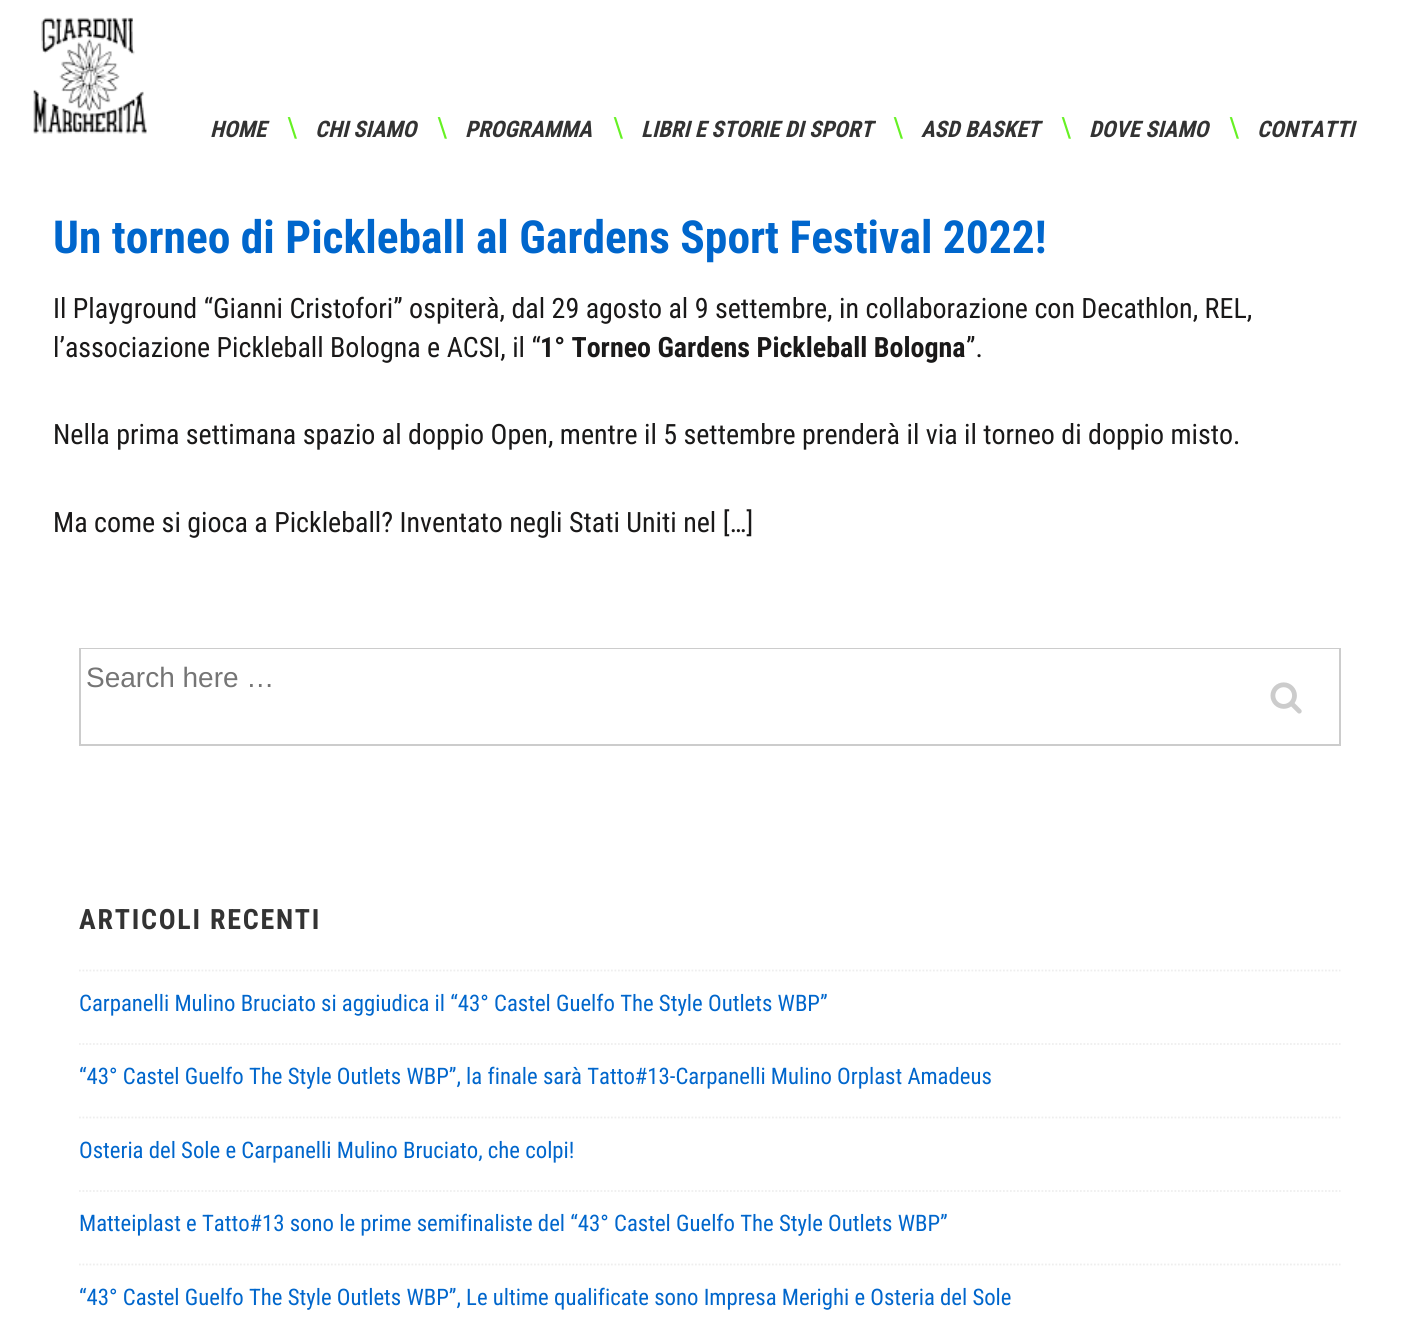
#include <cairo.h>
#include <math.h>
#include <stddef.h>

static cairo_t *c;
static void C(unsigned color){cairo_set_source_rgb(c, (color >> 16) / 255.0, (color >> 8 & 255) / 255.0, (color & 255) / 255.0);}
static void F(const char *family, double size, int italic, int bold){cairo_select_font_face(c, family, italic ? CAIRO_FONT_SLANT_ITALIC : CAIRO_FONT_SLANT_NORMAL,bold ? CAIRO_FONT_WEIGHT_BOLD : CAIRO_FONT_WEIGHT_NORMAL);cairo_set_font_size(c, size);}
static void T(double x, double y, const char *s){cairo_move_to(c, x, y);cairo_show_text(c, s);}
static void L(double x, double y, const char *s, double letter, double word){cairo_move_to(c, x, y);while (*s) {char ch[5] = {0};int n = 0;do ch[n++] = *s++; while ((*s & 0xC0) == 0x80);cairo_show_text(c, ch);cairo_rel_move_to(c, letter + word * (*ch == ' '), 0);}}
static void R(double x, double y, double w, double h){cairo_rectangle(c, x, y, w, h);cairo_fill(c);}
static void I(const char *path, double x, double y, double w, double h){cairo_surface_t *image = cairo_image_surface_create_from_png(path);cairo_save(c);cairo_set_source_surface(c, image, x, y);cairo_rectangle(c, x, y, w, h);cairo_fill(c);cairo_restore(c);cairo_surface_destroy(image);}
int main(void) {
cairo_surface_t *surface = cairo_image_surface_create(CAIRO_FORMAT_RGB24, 1418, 1317);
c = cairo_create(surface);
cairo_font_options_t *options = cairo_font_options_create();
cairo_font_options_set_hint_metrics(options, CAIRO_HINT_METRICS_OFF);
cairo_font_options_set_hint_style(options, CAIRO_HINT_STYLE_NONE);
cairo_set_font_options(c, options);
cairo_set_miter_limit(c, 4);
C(0xffffff);
cairo_paint(c);
I("1.png",33,17,114,117);
F("Roboto Condensed",22.75,1,1);
C(0x333333);
T(210,137,"HOME");
F("Roboto Condensed",28,0,0);
C(0x66f124);
T(287,137,"\\");
F("Roboto Condensed",22.75,1,1);
C(0x333333);
T(315,137,"CHI SIAMO");
F("Roboto Condensed",28,0,0);
C(0x66f124);
T(437,137,"\\");
F("Roboto Condensed",22.75,1,1);
C(0x333333);
T(465,137,"PROGRAMMA");
F("Roboto Condensed",28,0,0);
C(0x66f124);
T(613,137,"\\");
F("Roboto Condensed",22.75,1,1);
C(0x333333);
T(641,137,"LIBRI E STORIE DI SPORT");
F("Roboto Condensed",28,0,0);
C(0x66f124);
T(893,137,"\\");
F("Roboto Condensed",22.75,1,1);
C(0x333333);
T(921,137,"ASD BASKET");
F("Roboto Condensed",28,0,0);
C(0x66f124);
T(1061,137,"\\");
F("Roboto Condensed",22.75,1,1);
C(0x333333);
T(1089,137,"DOVE SIAMO");
F("Roboto Condensed",28,0,0);
C(0x66f124);
T(1229,137,"\\");
F("Roboto Condensed",22.75,1,1);
C(0x333333);
T(1257,137,"CONTATTI");
F("Roboto Condensed",45.5,0,1);
C(0x0066cc);
T(53,253,"Un torneo di Pickleball al Gardens Sport Festival 2022!");
F("Roboto Condensed",28,0,0);
C(0x1a1919);
T(53,318,"Il Playground “Gianni Cristofori” ospiterà, dal 29 agosto al 9 settembre, in collaborazione con Decathlon, REL,");
T(53,357,"l’associazione Pickleball Bologna e ACSI, il “");
F("Roboto Condensed",28,0,1);
T(540,357,"1° Torneo Gardens Pickleball Bologna");
F("Roboto Condensed",28,0,0);
T(966,357,"”.");
T(53,444,"Nella prima settimana spazio al doppio Open, mentre il 5 settembre prenderà il via il torneo di doppio misto.");
T(53,532,"Ma come si gioca a Pickleball? Inventato negli Stati Uniti nel […]");
cairo_rectangle(c,80,649,1260,96);
C(0xcccccc);
cairo_stroke(c);
C(0xffffff);
R(81,649,1258,1);
F("Liberation Sans",28,0,0);
C(0x757575);
T(86,687,"Search here …");
I("2.png",1270,682,32,32);
F("Roboto Condensed",28,0,1);
C(0x333333);
L(79,929,"ARTICOLI RECENTI",1.75,0);
cairo_new_path(c);
cairo_move_to(c,79,970.5);
cairo_line_to(c,1340.5,970.5);
C(0xeeeeee);
cairo_set_line_width(c,1.8);
cairo_set_dash(c,(double[]){1.75,1.75},2,0);
cairo_stroke(c);
F("Roboto Condensed",22.75,0,0);
C(0x0066cc);
T(79,1011,"Carpanelli Mulino Bruciato si aggiudica il “43° Castel Guelfo The Style Outlets WBP”");
cairo_new_path(c);
cairo_move_to(c,79,1044);
cairo_line_to(c,1340.5,1044);
C(0xeeeeee);
cairo_stroke(c);
C(0x0066cc);
T(79,1084,"“43° Castel Guelfo The Style Outlets WBP”, la finale sarà Tatto#13-Carpanelli Mulino Orplast Amadeus");
cairo_new_path(c);
cairo_move_to(c,79,1117.5);
cairo_line_to(c,1340.5,1117.5);
C(0xeeeeee);
cairo_stroke(c);
C(0x0066cc);
T(79,1158,"Osteria del Sole e Carpanelli Mulino Bruciato, che colpi!");
cairo_new_path(c);
cairo_move_to(c,79,1191);
cairo_line_to(c,1340.5,1191);
C(0xeeeeee);
cairo_stroke(c);
C(0x0066cc);
T(79,1231,"Matteiplast e Tatto#13 sono le prime semifinaliste del “43° Castel Guelfo The Style Outlets WBP”");
cairo_new_path(c);
cairo_move_to(c,79,1264.5);
cairo_line_to(c,1340.5,1264.5);
C(0xeeeeee);
cairo_stroke(c);
C(0x0066cc);
T(79,1305,"“43° Castel Guelfo The Style Outlets WBP”, Le ultime qualificate sono Impresa Merighi e Osteria del Sole");
cairo_surface_write_to_png(surface, "o.png");
cairo_font_options_destroy(options);
cairo_destroy(c);
cairo_surface_destroy(surface);
return 0;
}
